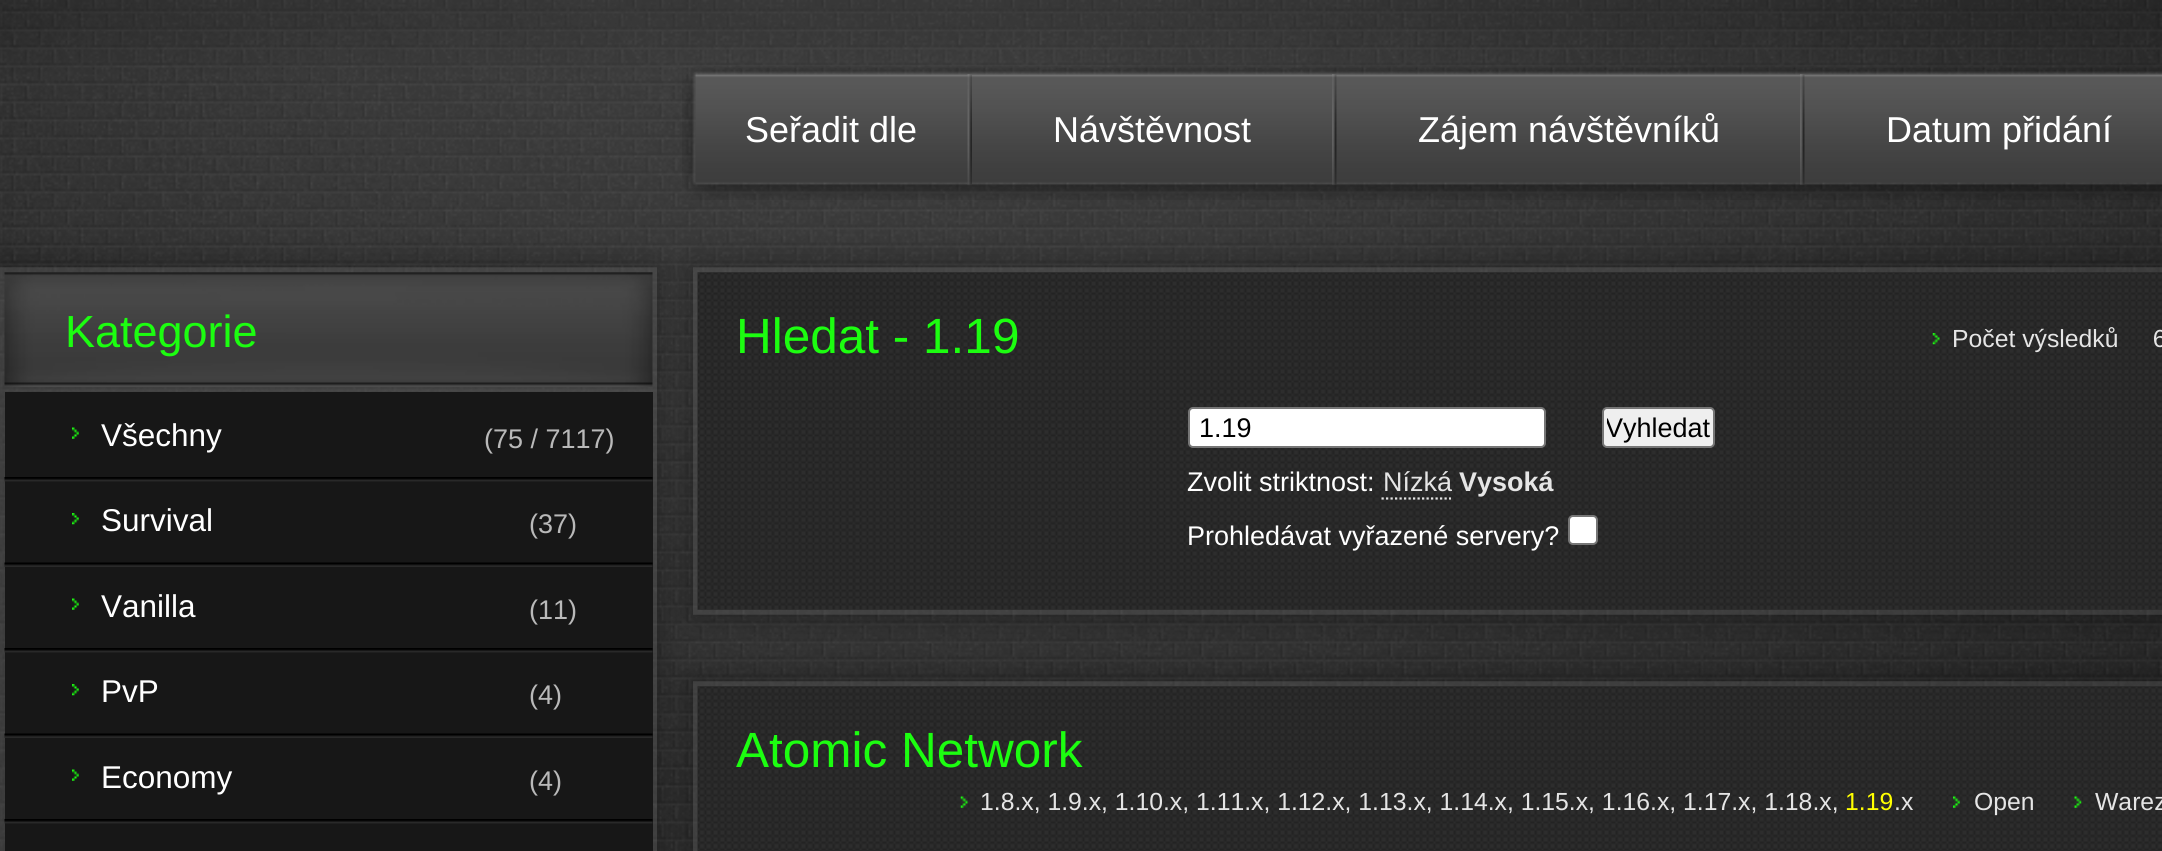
#include <cairo.h>
#include <math.h>
#include <stddef.h>

static cairo_t *c;
static void C(unsigned color){cairo_set_source_rgb(c, (color >> 16) / 255.0, (color >> 8 & 255) / 255.0, (color & 255) / 255.0);}
static void F(const char *family, double size, int italic, int bold){cairo_select_font_face(c, family, italic ? CAIRO_FONT_SLANT_ITALIC : CAIRO_FONT_SLANT_NORMAL,bold ? CAIRO_FONT_WEIGHT_BOLD : CAIRO_FONT_WEIGHT_NORMAL);cairo_set_font_size(c, size);}
static void T(double x, double y, const char *s){cairo_move_to(c, x, y);cairo_show_text(c, s);}
static void R(double x, double y, double w, double h){cairo_rectangle(c, x, y, w, h);cairo_fill(c);}
static void Q(double x, double y, double w, double h, double r){cairo_new_sub_path(c);cairo_arc(c, x + w - r, y + h - r, r, 0, M_PI / 2);cairo_arc(c, x + r, y + h - r, r, M_PI / 2, M_PI);cairo_arc(c, x + r, y + r, r, M_PI, 1.5 * M_PI);cairo_arc(c, x + w - r, y + r, r, 1.5 * M_PI, 2 * M_PI);cairo_close_path(c);}
static void S(double x, double y, double w, double h, double r, double blur, double alpha){cairo_push_group_with_content(c, CAIRO_CONTENT_ALPHA);cairo_set_operator(c, CAIRO_OPERATOR_SOURCE);for (int i = 15; i >= -15 && fmin(w, h) + blur * i / 3 > 0; i -= 2) {double e = blur * i / 6;cairo_set_source_rgba(c, 0, 0, 0, alpha * erfc((i - 1) / 8.5) / 2);Q(x - e, y - e, w + 2 * e, h + 2 * e, fmax(0, fmin(r + e + blur * .6, fmin(w, h) / 2 + e)));cairo_fill(c);}cairo_pattern_t *soft = cairo_pop_group(c);cairo_mask(c, soft);cairo_pattern_destroy(soft);}
static void I(const char *path, double x, double y, double w, double h){cairo_surface_t *image = cairo_image_surface_create_from_png(path);cairo_save(c);cairo_set_source_surface(c, image, x, y);cairo_rectangle(c, x, y, w, h);cairo_fill(c);cairo_restore(c);cairo_surface_destroy(image);}
int main(void) {
cairo_surface_t *surface = cairo_image_surface_create(CAIRO_FORMAT_RGB24, 2162, 851);
c = cairo_create(surface);
cairo_font_options_t *options = cairo_font_options_create();
cairo_font_options_set_hint_metrics(options, CAIRO_HINT_METRICS_OFF);
cairo_font_options_set_hint_style(options, CAIRO_HINT_STYLE_NONE);
cairo_set_font_options(c, options);
cairo_set_miter_limit(c, 4);
C(0xffffff);
cairo_paint(c);
I("1.png",0,0,2162,851);
I("2.png",0,0,2162,851);
I("3.png",682,66,1480,134);
I("4.png",967,74,5,111);
F("Liberation Sans",36,0,0);
C(0xffffff);
T(745,142,"Seřadit dle");
I("5.png",1332,74,5,111);
T(1053,142,"Návštěvnost");
I("6.png",1800,74,5,111);
T(1418,142,"Zájem návštěvníků");
T(1886,142,"Datum přidání");
cairo_save(c);
cairo_set_fill_rule(c,CAIRO_FILL_RULE_EVEN_ODD);
cairo_new_path(c);
cairo_move_to(c,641,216);
cairo_line_to(c,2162,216);
cairo_line_to(c,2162,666);
cairo_line_to(c,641,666);
cairo_close_path(c);
cairo_move_to(c,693,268);
cairo_line_to(c,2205,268);
cairo_line_to(c,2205,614);
cairo_line_to(c,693,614);
cairo_close_path(c);
cairo_clip(c);
C(0x000000);
S(693,268,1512,346,0,17,.4);
cairo_restore(c);
cairo_set_source_rgba(c,0.369,0.369,0.369,0.34);
R(693,267,1469,348);
I("15.png",697,272,1465,338);
cairo_save(c);
cairo_set_fill_rule(c,CAIRO_FILL_RULE_EVEN_ODD);
cairo_new_path(c);
cairo_move_to(c,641,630);
cairo_line_to(c,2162,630);
cairo_line_to(c,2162,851);
cairo_line_to(c,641,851);
cairo_close_path(c);
cairo_move_to(c,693,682);
cairo_line_to(c,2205,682);
cairo_line_to(c,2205,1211);
cairo_line_to(c,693,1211);
cairo_close_path(c);
cairo_clip(c);
C(0x000000);
S(693,682,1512,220,0,17,.4);
cairo_restore(c);
R(693,681,1469,170);
I("17.png",697,686,1465,165);
cairo_save(c);
cairo_set_fill_rule(c,CAIRO_FILL_RULE_EVEN_ODD);
cairo_new_path(c);
cairo_move_to(c,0,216);
cairo_line_to(c,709,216);
cairo_line_to(c,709,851);
cairo_line_to(c,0,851);
cairo_close_path(c);
cairo_move_to(c,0,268);
cairo_line_to(c,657,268);
cairo_line_to(c,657,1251);
cairo_line_to(c,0,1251);
cairo_close_path(c);
cairo_clip(c);
C(0x000000);
S(0,268,657,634,0,17,.4);
cairo_restore(c);
R(0,267,657,584);
I("7.png",4,272,649,115);
F("Liberation Sans",45,0,0);
C(0x1cfe10);
T(65,347,"Kategorie");
C(0x171717);
R(5,392,648,459);
I("8.png",72,427,7,12);
F("Liberation Sans",31.5,0,0);
C(0xffffff);
T(101,446,"Všechny");
F("Liberation Sans",27,0,0);
C(0xb9b9b9);
T(484,448,"(75 / 7117)");
I("9.png",4,477,649,5);
I("10.png",72,513,7,12);
F("Liberation Sans",31.5,0,0);
C(0xffffff);
T(101,531,"Survival");
F("Liberation Sans",27,0,0);
C(0xb9b9b9);
T(529,533,"(37)");
I("11.png",4,562,649,5);
I("8.png",72,598,7,12);
F("Liberation Sans",31.5,0,0);
C(0xffffff);
T(101,617,"Vanilla");
F("Liberation Sans",27,0,0);
C(0xb9b9b9);
T(529,619,"(11)");
I("12.png",4,648,649,5);
I("10.png",72,684,7,12);
F("Liberation Sans",31.5,0,0);
C(0xffffff);
T(101,702,"PvP");
F("Liberation Sans",27,0,0);
C(0xb9b9b9);
T(529,704,"(4)");
I("13.png",4,733,649,5);
I("8.png",72,769,7,12);
F("Liberation Sans",31.5,0,0);
C(0xffffff);
T(101,788,"Economy");
F("Liberation Sans",27,0,0);
C(0xb9b9b9);
T(529,790,"(4)");
I("14.png",4,819,649,5);
F("Liberation Sans",49.5,0,0);
C(0x1cfe10);
T(736,353,"Hledat - 1.19");
I("16.png",1932,333,8,12);
F("Liberation Sans",24.75,0,0);
C(0xe5e5e5);
T(1952,347,"Počet výsledků     6");
C(0xffffff);
Q(1189,408,356,39,4);
cairo_fill_preserve(c);
C(0x767676);
cairo_stroke(c);
F("Liberation Sans",27,0,0);
C(0x000000);
T(1199,437,"1.19");
C(0xefefef);
Q(1603,408,111,39,4);
cairo_fill_preserve(c);
C(0x767676);
cairo_stroke(c);
cairo_save(c);
cairo_rectangle(c,1607,412,103,31);
cairo_clip(c);
C(0x000000);
T(1605,437,"Vyhledat");
cairo_restore(c);
C(0xffffff);
T(1187,491,"Zvolit striktnost:");
C(0xe5e5e5);
T(1383,491,"Nízká");
cairo_new_path(c);
cairo_move_to(c,1381.5,498.5);
cairo_line_to(c,1451,498.5);
cairo_set_line_width(c,2.2);
cairo_set_dash(c,(double[]){2.25,2.25},2,0);
cairo_stroke(c);
F("Liberation Sans",27,0,1);
T(1459,491,"Vysoká");
F("Liberation Sans",27,0,0);
C(0xffffff);
T(1187,545,"Prohledávat vyřazené servery?");
Q(1569,516,28,28,4);
cairo_fill_preserve(c);
C(0x767676);
cairo_set_line_width(c,2);
cairo_set_dash(c,NULL,0,0);
cairo_stroke(c);
F("Liberation Sans",49.5,0,0);
C(0x1cfe10);
T(736,767,"Atomic Network");
I("18.png",960,796,8,12);
F("Liberation Sans",24.75,0,0);
C(0xe5e5e5);
T(980,810,"1.8.x, 1.9.x, 1.10.x, 1.11.x, 1.12.x, 1.13.x, 1.14.x, 1.15.x, 1.16.x, 1.17.x, 1.18.x,");
C(0xffff00);
T(1845,810,"1.19");
C(0xe5e5e5);
T(1894,810,".x");
I("19.png",1953,796,7,12);
T(1974,810,"Open");
I("20.png",2074,796,8,12);
T(2095,810,"Warez");
cairo_surface_write_to_png(surface, "o.png");
cairo_font_options_destroy(options);
cairo_destroy(c);
cairo_surface_destroy(surface);
return 0;
}
